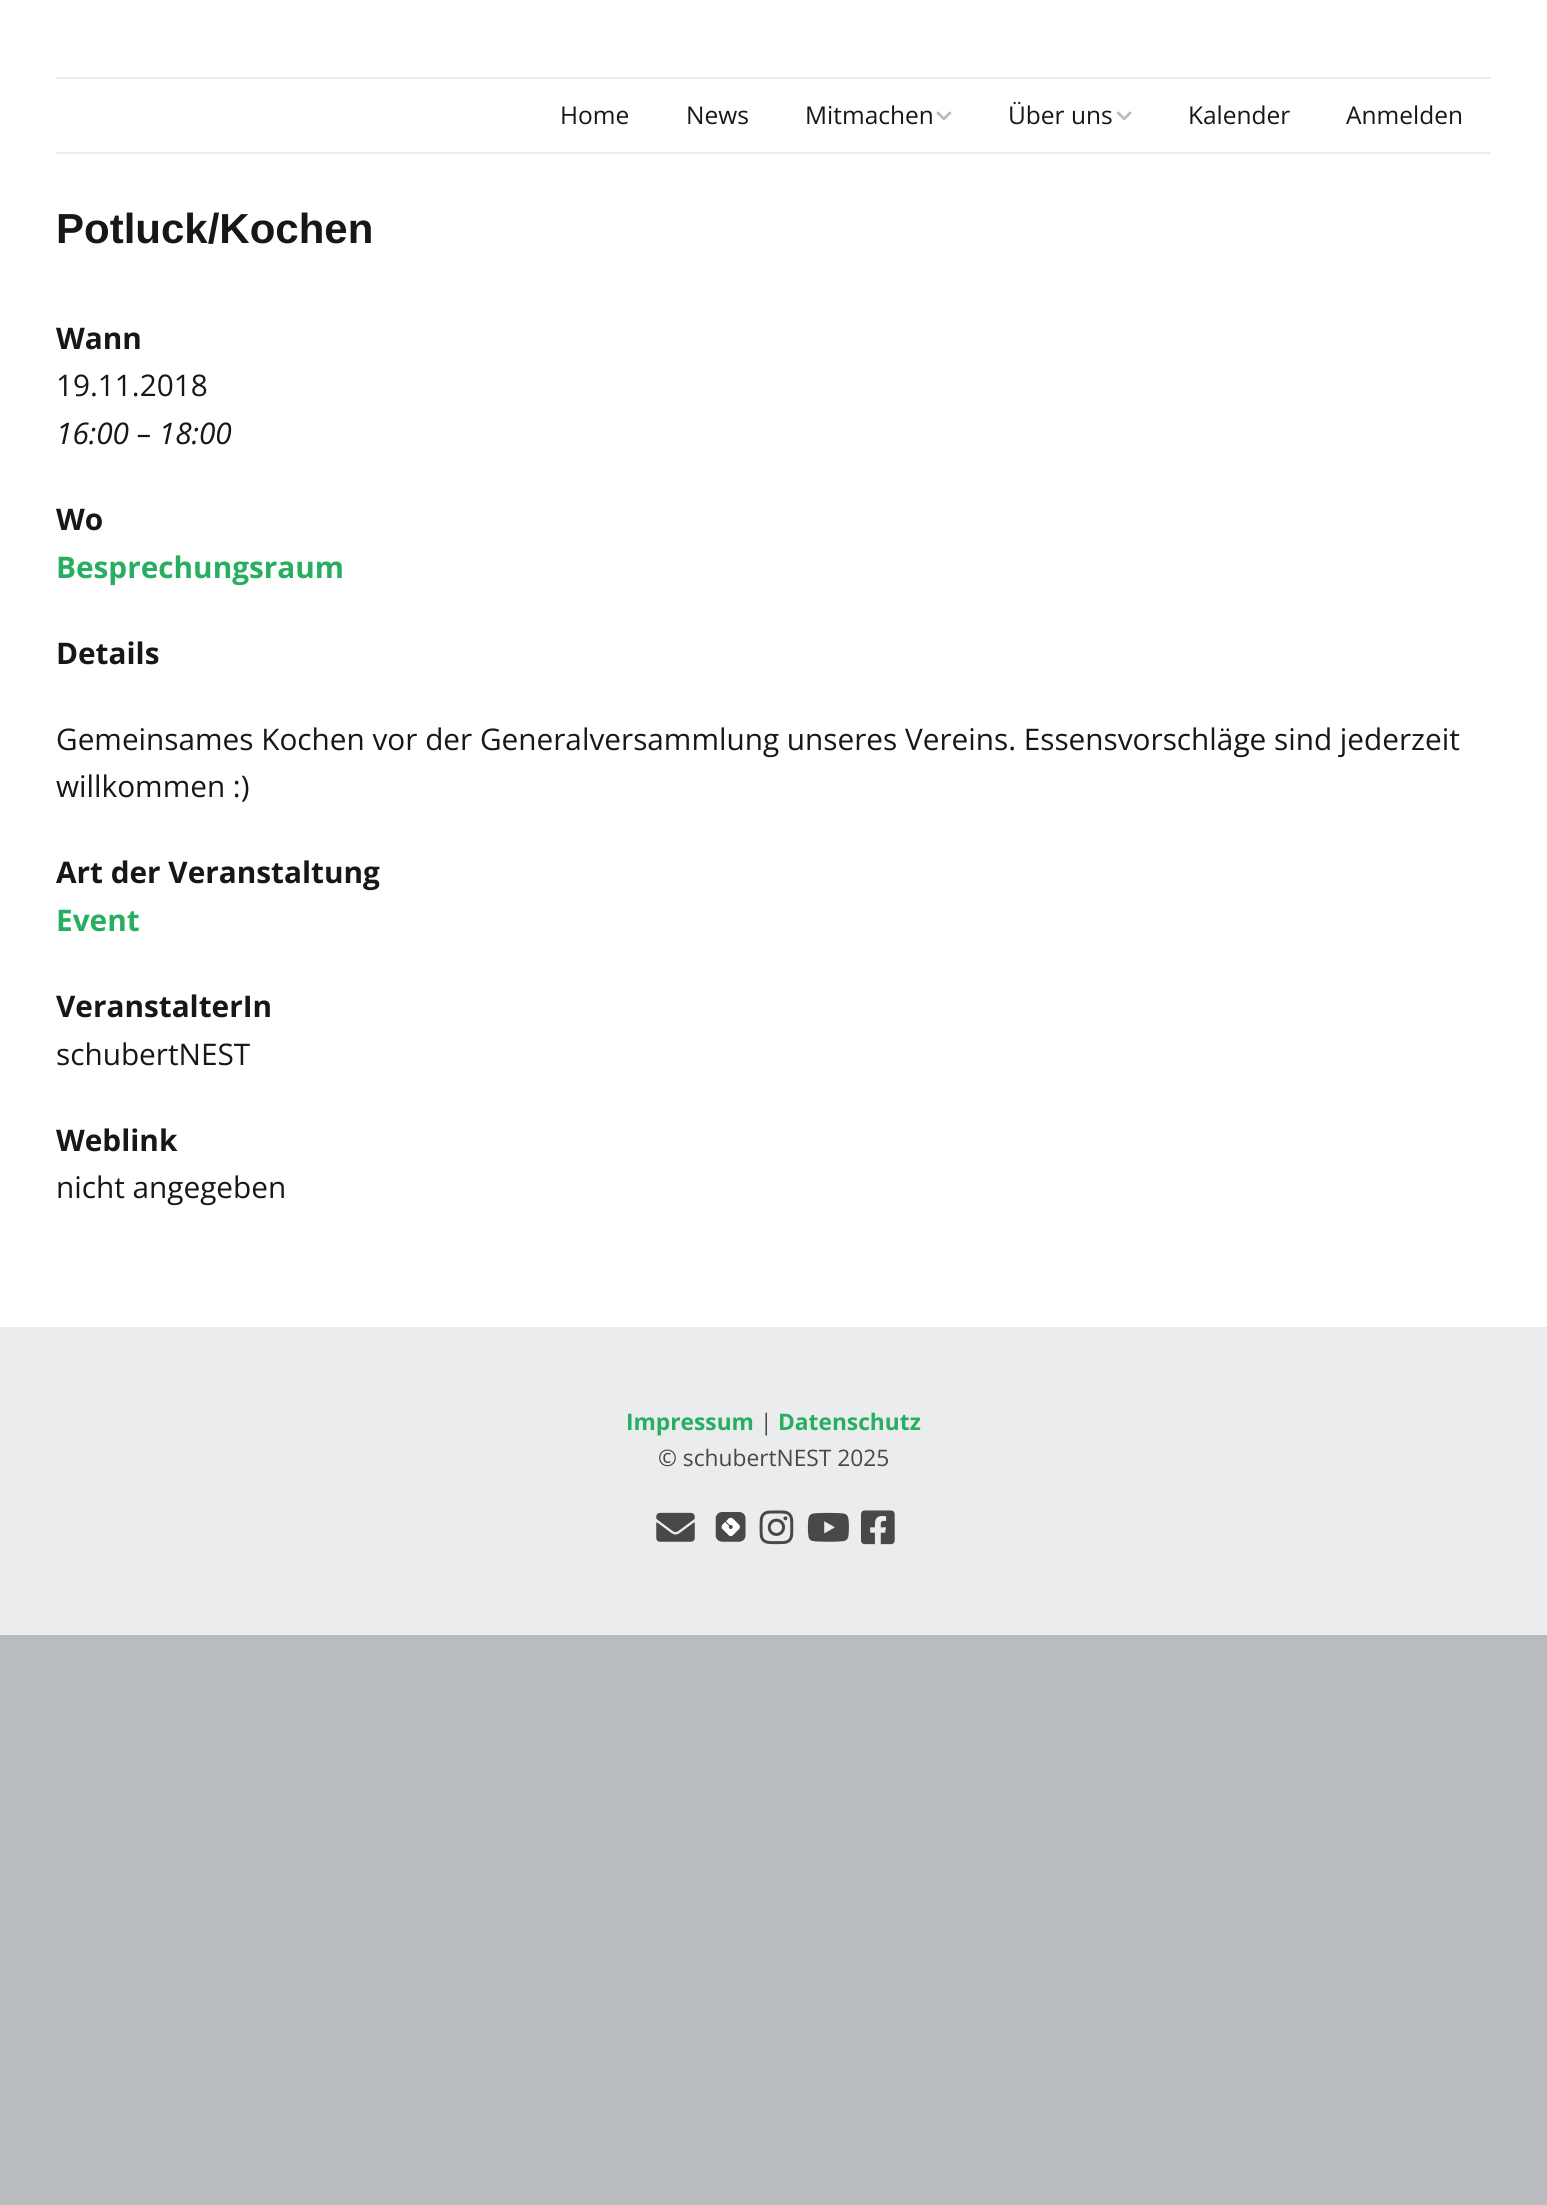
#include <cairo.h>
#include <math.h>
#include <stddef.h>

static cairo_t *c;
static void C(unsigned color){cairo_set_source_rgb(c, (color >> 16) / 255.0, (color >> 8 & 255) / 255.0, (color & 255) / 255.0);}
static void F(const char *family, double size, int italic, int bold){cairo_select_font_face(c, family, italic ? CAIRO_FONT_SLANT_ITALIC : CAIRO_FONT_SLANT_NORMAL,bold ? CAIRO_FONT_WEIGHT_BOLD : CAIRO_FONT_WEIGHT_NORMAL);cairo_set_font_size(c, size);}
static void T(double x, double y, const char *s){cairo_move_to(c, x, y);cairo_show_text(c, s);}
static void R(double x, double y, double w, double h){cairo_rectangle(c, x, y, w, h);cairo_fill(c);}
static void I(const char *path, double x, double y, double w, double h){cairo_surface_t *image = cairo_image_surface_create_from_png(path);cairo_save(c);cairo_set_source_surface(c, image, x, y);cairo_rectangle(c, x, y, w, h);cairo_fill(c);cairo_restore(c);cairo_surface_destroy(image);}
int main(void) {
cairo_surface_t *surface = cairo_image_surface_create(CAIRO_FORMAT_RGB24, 1547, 2205);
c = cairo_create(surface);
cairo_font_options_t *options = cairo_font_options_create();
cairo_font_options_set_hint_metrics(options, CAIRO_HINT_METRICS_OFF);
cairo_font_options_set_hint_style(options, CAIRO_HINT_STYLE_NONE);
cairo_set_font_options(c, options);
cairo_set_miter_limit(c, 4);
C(0xb9bcbf);
cairo_paint(c);
C(0xffffff);
R(0,0,1547,1327);
C(0xeaecee);
R(56,77,1435,2);
R(56,152,1435,2);
F("Open Sans",24.5,0,0);
C(0x171717);
T(560,124,"Home");
T(686,124,"News");
T(805,124,"Mitmachen");
I("1.png",936,111,16,10);
T(1008,124,"Über uns");
I("2.png",1116,111,16,10);
T(1188,124,"Kalender");
T(1346,124,"Anmelden");
F("Liberation Sans",42,0,1);
T(56,243,"Potluck/Kochen");
F("Open Sans",29.75,0,1);
T(56,349,"Wann");
F("Open Sans",29.75,0,0);
T(56,396,"19.11.2018");
F("Open Sans",29.75,1,0);
T(56,444,"16:00 – 18:00");
F("Open Sans",29.75,0,1);
T(56,530,"Wo");
C(0x27ae60);
T(56,578,"Besprechungsraum");
C(0x171717);
T(56,664,"Details");
F("Open Sans",29.75,0,0);
T(56,750,"Gemeinsames Kochen vor der Generalversammlung unseres Vereins. Essensvorschläge sind jederzeit");
T(56,797,"willkommen :)");
F("Open Sans",29.75,0,1);
T(56,883,"Art der Veranstaltung");
C(0x27ae60);
T(56,931,"Event");
C(0x171717);
T(56,1017,"VeranstalterIn");
F("Open Sans",29.75,0,0);
T(56,1065,"schubertNEST");
F("Open Sans",29.75,0,1);
T(56,1151,"Weblink");
F("Open Sans",29.75,0,0);
T(56,1198,"nicht angegeben");
C(0xeaecee);
R(0,1327,1547,308);
F("Open Sans",22.75,0,1);
C(0x27ae60);
T(626,1430,"Impressum");
F("Open Sans",22.75,0,0);
C(0x464849);
T(760,1430,"|");
F("Open Sans",22.75,0,1);
C(0x27ae60);
T(778,1430,"Datenschutz");
F("Open Sans",22.75,0,0);
C(0x464849);
T(658,1466,"© schubertNEST 2025");
I("3.png",656,1512,39,30);
I("4.png",715,1512,31,30);
I("5.png",759,1510,35,35);
I("6.png",807,1512,42,30);
I("7.png",861,1510,34,35);
cairo_surface_write_to_png(surface, "o.png");
cairo_font_options_destroy(options);
cairo_destroy(c);
cairo_surface_destroy(surface);
return 0;
}
